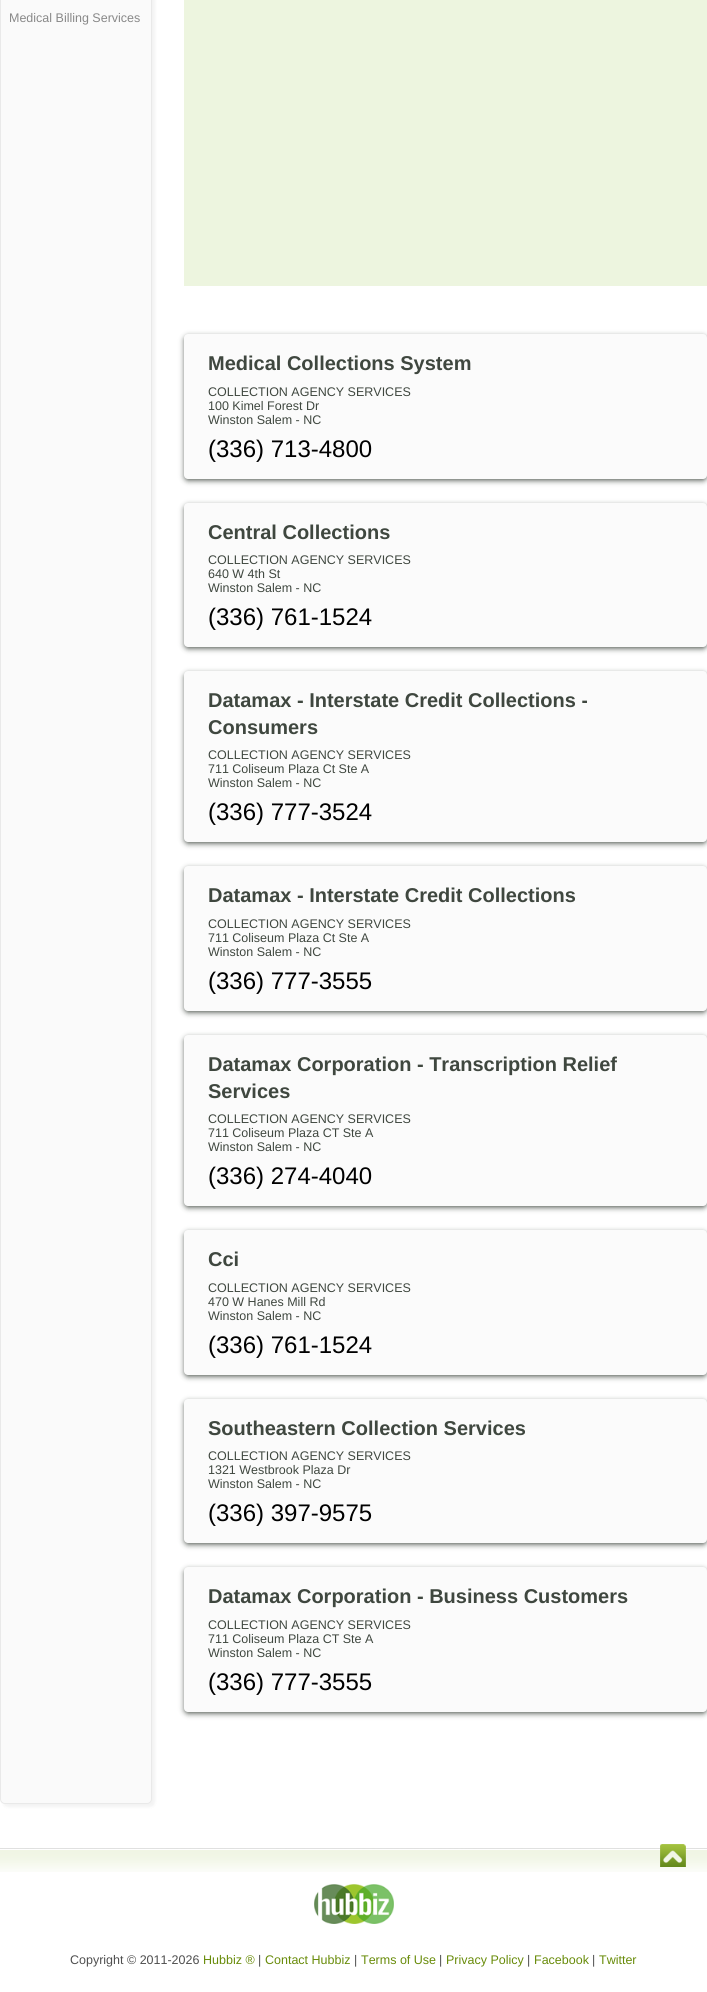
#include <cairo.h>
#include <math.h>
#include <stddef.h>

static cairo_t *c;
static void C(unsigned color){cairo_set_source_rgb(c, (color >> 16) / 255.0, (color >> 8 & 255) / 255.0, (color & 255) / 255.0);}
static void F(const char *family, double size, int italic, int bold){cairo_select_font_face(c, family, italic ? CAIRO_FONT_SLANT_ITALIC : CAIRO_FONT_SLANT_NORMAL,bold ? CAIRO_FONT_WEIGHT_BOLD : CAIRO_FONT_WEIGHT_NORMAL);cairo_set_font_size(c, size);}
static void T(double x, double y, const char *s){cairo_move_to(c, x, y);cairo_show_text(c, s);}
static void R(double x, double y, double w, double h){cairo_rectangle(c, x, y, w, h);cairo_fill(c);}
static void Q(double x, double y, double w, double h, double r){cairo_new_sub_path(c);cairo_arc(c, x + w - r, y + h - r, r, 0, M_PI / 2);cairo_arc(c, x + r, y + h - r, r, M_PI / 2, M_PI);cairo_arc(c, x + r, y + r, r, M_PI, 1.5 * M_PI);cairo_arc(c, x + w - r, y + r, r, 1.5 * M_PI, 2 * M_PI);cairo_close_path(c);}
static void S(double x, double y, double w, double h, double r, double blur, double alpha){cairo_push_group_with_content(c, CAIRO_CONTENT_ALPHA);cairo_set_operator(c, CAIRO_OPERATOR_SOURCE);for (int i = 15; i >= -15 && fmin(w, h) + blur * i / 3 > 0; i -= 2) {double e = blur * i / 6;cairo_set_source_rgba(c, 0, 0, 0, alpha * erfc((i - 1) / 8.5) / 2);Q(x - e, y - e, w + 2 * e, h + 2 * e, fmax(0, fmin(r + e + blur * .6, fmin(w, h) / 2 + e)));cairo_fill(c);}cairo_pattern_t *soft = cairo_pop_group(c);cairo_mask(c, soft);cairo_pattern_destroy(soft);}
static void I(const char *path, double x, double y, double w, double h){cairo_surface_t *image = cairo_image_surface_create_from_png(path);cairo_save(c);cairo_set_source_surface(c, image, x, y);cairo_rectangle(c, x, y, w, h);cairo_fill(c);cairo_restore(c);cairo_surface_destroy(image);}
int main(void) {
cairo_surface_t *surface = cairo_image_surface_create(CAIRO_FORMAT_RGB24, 707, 1992);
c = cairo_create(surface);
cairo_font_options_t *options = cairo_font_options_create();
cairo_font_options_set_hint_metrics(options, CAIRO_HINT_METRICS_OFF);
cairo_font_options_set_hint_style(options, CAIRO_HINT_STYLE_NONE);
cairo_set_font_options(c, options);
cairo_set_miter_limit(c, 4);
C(0xffffff);
cairo_paint(c);
C(0x000000);
S(3,-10,152,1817,5,1.5,.05);
C(0xfafafa);
Q(.5,-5.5,151,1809,4.5);
cairo_fill_preserve(c);
C(0xe9e9e9);
cairo_set_line_width(c,1);
cairo_stroke(c);
F("Liberation Sans",12.5,0,0);
C(0x888888);
T(9,22,"Medical Billing Services");
C(0xedf5df);
R(184,0,523,286);
C(0x3f473f);
S(185,337,521,143,3,3,1);
C(0xfbfbfb);
Q(184,334,523,145,4);
cairo_fill(c);
F("Liberation Sans",20,0,1);
C(0x3f473f);
T(208,370,"Medical Collections System");
F("Liberation Sans",12.5,0,0);
T(208,396,"COLLECTION AGENCY SERVICES");
T(208,410,"100 Kimel Forest Dr");
T(208,424,"Winston Salem - NC");
F("Liberation Sans",24,0,0);
C(0x000000);
T(208,457,"(336) 713-4800");
C(0x3f473f);
S(185,506,521,142,3,3,1);
C(0xfbfbfb);
Q(184,503,523,144,4);
cairo_fill(c);
F("Liberation Sans",20,0,1);
C(0x3f473f);
T(208,539,"Central Collections");
F("Liberation Sans",12.5,0,0);
T(208,564,"COLLECTION AGENCY SERVICES");
T(208,578,"640 W 4th St");
T(208,592,"Winston Salem - NC");
F("Liberation Sans",24,0,0);
C(0x000000);
T(208,625,"(336) 761-1524");
C(0x3f473f);
S(185,674,521,169,3,3,1);
C(0xfbfbfb);
Q(184,671,523,171,4);
cairo_fill(c);
F("Liberation Sans",20,0,1);
C(0x3f473f);
T(208,707,"Datamax - Interstate Credit Collections -");
T(208,734,"Consumers");
F("Liberation Sans",12.5,0,0);
T(208,759,"COLLECTION AGENCY SERVICES");
T(208,773,"711 Coliseum Plaza Ct Ste A");
T(208,787,"Winston Salem - NC");
F("Liberation Sans",24,0,0);
C(0x000000);
T(208,820,"(336) 777-3524");
C(0x3f473f);
S(185,869,521,143,3,3,1);
C(0xfbfbfb);
Q(184,866,523,145,4);
cairo_fill(c);
F("Liberation Sans",20,0,1);
C(0x3f473f);
T(208,902,"Datamax - Interstate Credit Collections");
F("Liberation Sans",12.5,0,0);
T(208,928,"COLLECTION AGENCY SERVICES");
T(208,942,"711 Coliseum Plaza Ct Ste A");
T(208,956,"Winston Salem - NC");
F("Liberation Sans",24,0,0);
C(0x000000);
T(208,989,"(336) 777-3555");
C(0x3f473f);
S(185,1038,521,169,3,3,1);
C(0xfbfbfb);
Q(184,1035,523,171,4);
cairo_fill(c);
F("Liberation Sans",20,0,1);
C(0x3f473f);
T(208,1071,"Datamax Corporation - Transcription Relief");
T(208,1098,"Services");
F("Liberation Sans",12.5,0,0);
T(208,1123,"COLLECTION AGENCY SERVICES");
T(208,1137,"711 Coliseum Plaza CT Ste A");
T(208,1151,"Winston Salem - NC");
F("Liberation Sans",24,0,0);
C(0x000000);
T(208,1184,"(336) 274-4040");
C(0x3f473f);
S(185,1233,521,143,3,3,1);
C(0xfbfbfb);
Q(184,1230,523,145,4);
cairo_fill(c);
F("Liberation Sans",20,0,1);
C(0x3f473f);
T(208,1266,"Cci");
F("Liberation Sans",12.5,0,0);
T(208,1292,"COLLECTION AGENCY SERVICES");
T(208,1306,"470 W Hanes Mill Rd");
T(208,1320,"Winston Salem - NC");
F("Liberation Sans",24,0,0);
C(0x000000);
T(208,1353,"(336) 761-1524");
C(0x3f473f);
S(185,1402,521,142,3,3,1);
C(0xfbfbfb);
Q(184,1399,523,144,4);
cairo_fill(c);
F("Liberation Sans",20,0,1);
C(0x3f473f);
T(208,1435,"Southeastern Collection Services");
F("Liberation Sans",12.5,0,0);
T(208,1460,"COLLECTION AGENCY SERVICES");
T(208,1474,"1321 Westbrook Plaza Dr");
T(208,1488,"Winston Salem - NC");
F("Liberation Sans",24,0,0);
C(0x000000);
T(208,1521,"(336) 397-9575");
C(0x3f473f);
S(185,1570,521,143,3,3,1);
C(0xfbfbfb);
Q(184,1567,523,145,4);
cairo_fill(c);
F("Liberation Sans",20,0,1);
C(0x3f473f);
T(208,1603,"Datamax Corporation - Business Customers");
F("Liberation Sans",12.5,0,0);
T(208,1629,"COLLECTION AGENCY SERVICES");
T(208,1643,"711 Coliseum Plaza CT Ste A");
T(208,1657,"Winston Salem - NC");
F("Liberation Sans",24,0,0);
C(0x000000);
T(208,1690,"(336) 777-3555");
I("1.png",0,1848,707,24);
I("2.png",660,1844,26,23);
I("3.png",314,1884,80,40);
F("Liberation Sans",12.5,0,0);
C(0x4f4f4f);
T(70,1964,"Copyright © 2011-2026");
C(0x688b09);
T(203,1964,"Hubbiz ®");
C(0x4f4f4f);
T(258,1964,"|");
C(0x688b09);
T(265,1964,"Contact Hubbiz");
C(0x4f4f4f);
T(354,1964,"|");
C(0x688b09);
T(361,1964,"Terms of Use");
C(0x4f4f4f);
T(439,1964,"|");
C(0x688b09);
T(446,1964,"Privacy Policy");
C(0x4f4f4f);
T(527,1964,"|");
C(0x688b09);
T(534,1964,"Facebook");
C(0x4f4f4f);
T(592,1964,"|");
C(0x688b09);
T(599,1964,"Twitter");
cairo_surface_write_to_png(surface, "o.png");
cairo_font_options_destroy(options);
cairo_destroy(c);
cairo_surface_destroy(surface);
return 0;
}
